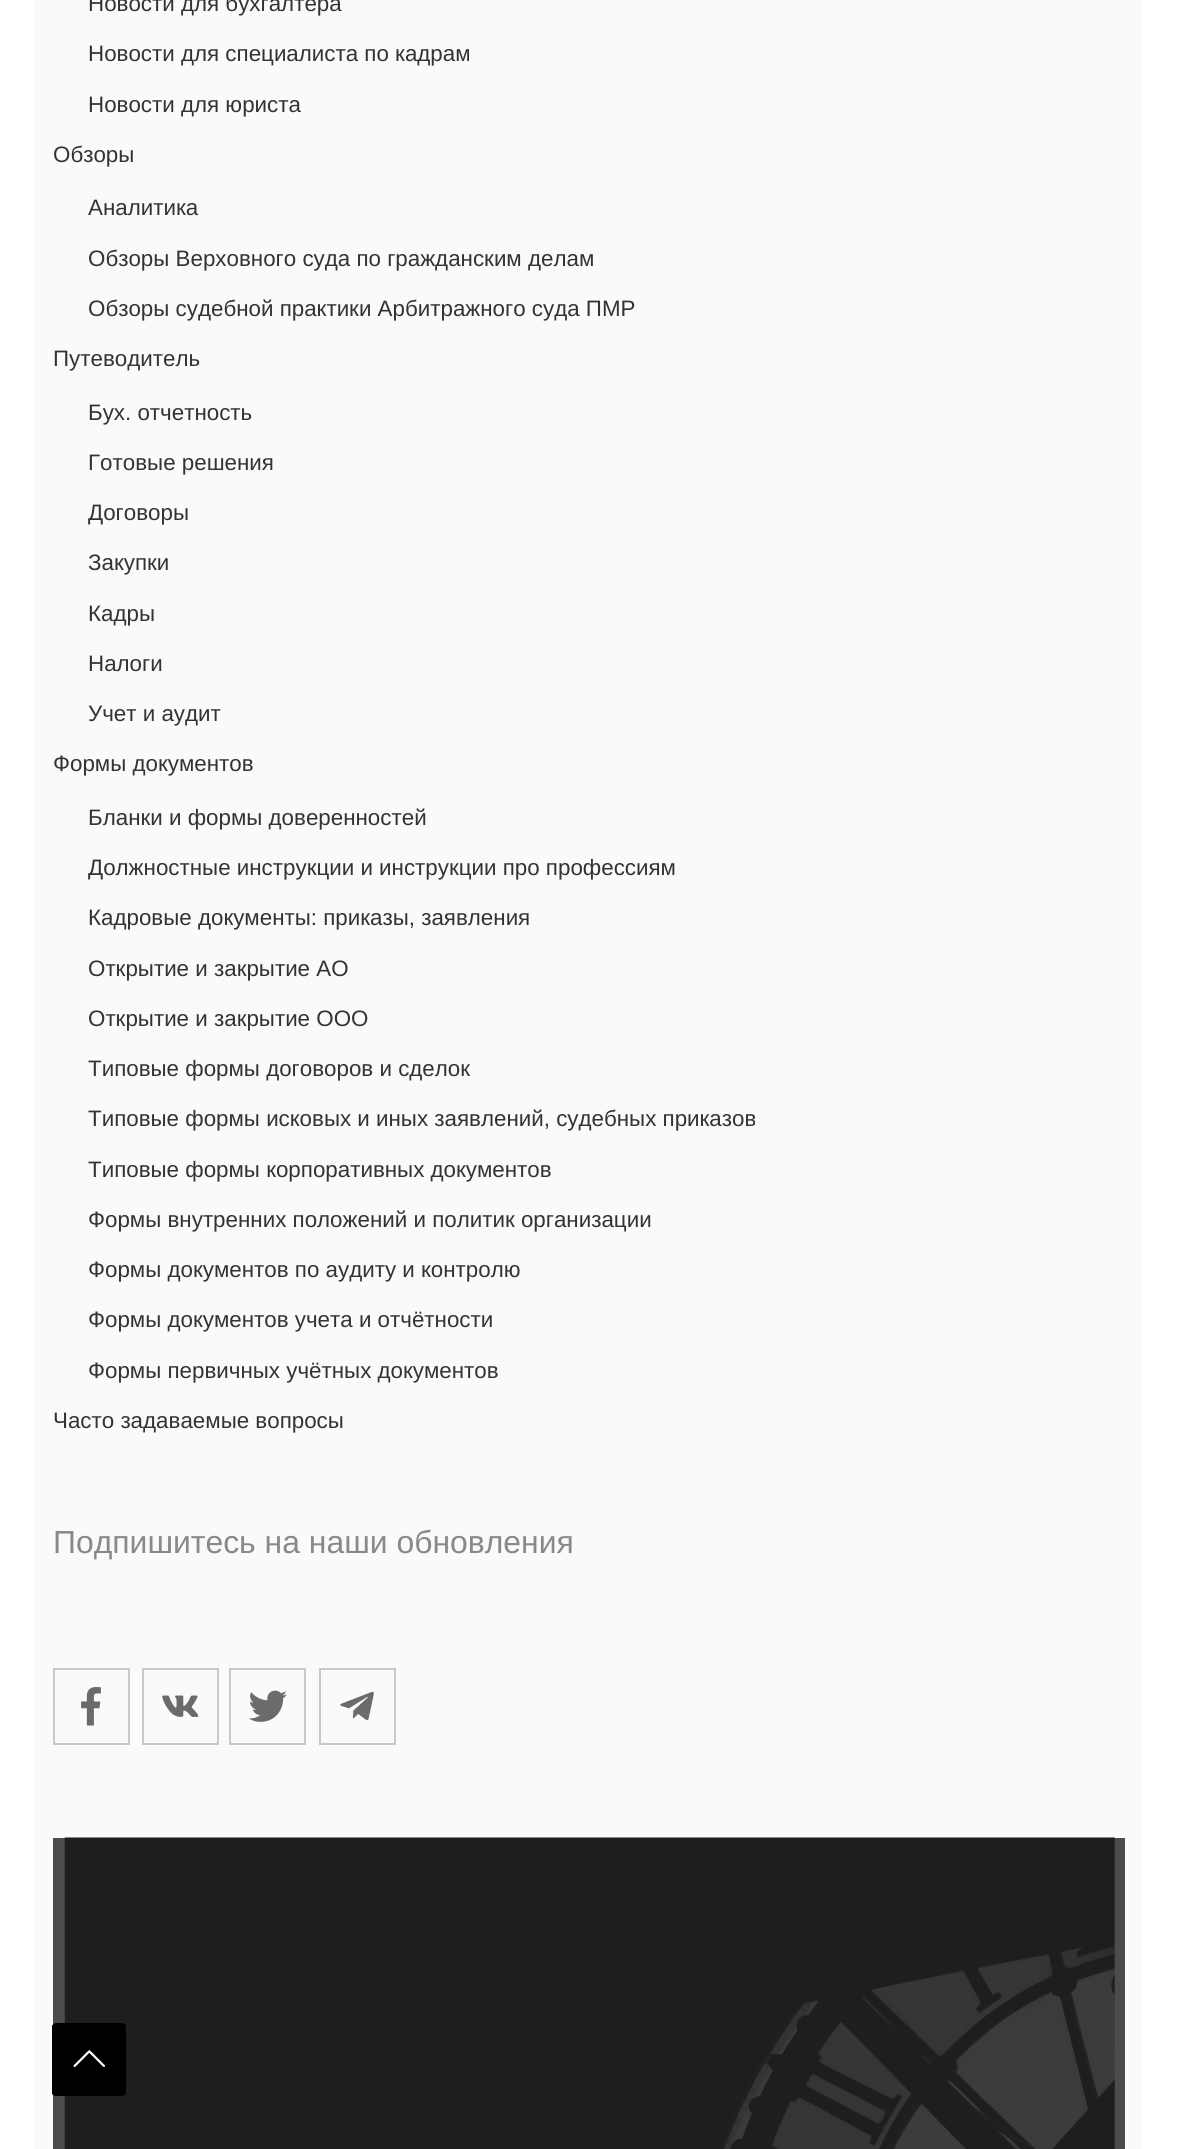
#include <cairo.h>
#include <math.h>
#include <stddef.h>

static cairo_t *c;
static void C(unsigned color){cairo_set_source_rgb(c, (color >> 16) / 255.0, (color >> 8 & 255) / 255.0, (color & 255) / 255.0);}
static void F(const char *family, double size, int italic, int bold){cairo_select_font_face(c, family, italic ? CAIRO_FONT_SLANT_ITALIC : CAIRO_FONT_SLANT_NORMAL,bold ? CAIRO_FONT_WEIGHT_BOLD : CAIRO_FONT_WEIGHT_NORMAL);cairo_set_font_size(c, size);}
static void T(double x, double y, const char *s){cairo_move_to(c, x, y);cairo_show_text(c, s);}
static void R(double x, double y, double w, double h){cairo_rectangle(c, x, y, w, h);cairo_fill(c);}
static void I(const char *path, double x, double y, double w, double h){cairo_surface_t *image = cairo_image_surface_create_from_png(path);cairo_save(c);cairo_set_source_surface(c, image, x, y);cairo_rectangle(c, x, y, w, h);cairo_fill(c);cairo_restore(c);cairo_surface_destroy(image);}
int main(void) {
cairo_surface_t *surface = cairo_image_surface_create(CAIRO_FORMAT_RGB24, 1177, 2149);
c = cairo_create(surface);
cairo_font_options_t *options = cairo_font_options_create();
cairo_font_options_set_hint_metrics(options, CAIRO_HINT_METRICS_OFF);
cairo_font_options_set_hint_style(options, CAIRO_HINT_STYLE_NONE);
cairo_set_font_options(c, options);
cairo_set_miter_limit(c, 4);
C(0xffffff);
cairo_paint(c);
C(0xf8fafb);
R(35,0,1108,2149);
C(0x4b4c4c);
R(53,1838,1072,311);
F("Liberation Sans",22.35,0,0);
C(0x333333);
T(88,11,"Новости для бухгалтера");
T(88,61,"Новости для специалиста по кадрам");
T(88,112,"Новости для юриста");
T(53,162,"Обзоры");
T(88,215,"Аналитика");
T(88,266,"Обзоры Верховного суда по гражданским делам");
T(88,316,"Обзоры судебной практики Арбитражного суда ПМР");
T(53,366,"Путеводитель");
T(88,420,"Бух. отчетность");
T(88,470,"Готовые решения");
T(88,520,"Договоры");
T(88,570,"Закупки");
T(88,621,"Кадры");
T(88,671,"Налоги");
T(88,721,"Учет и аудит");
T(53,771,"Формы документов");
T(88,825,"Бланки и формы доверенностей");
T(88,875,"Должностные инструкции и инструкции про профессиям");
T(88,925,"Кадровые документы: приказы, заявления");
T(88,976,"Открытие и закрытие АО");
T(88,1026,"Открытие и закрытие ООО");
T(88,1076,"Типовые формы договоров и сделок");
T(88,1126,"Типовые формы исковых и иных заявлений, судебных приказов");
T(88,1177,"Типовые формы корпоративных документов");
T(88,1227,"Формы внутренних положений и политик организации");
T(88,1277,"Формы документов по аудиту и контролю");
T(88,1327,"Формы документов учета и отчётности");
T(88,1378,"Формы первичных учётных документов");
T(53,1428,"Часто задаваемые вопросы");
F("Liberation Sans",31.9,0,0);
C(0x898989);
T(53,1553,"Подпишитесь на наши обновления");
cairo_rectangle(c,54,1669,75,75);
C(0xc6c8c9);
cairo_stroke(c);
I("1.png",81,1687,20,39);
cairo_rectangle(c,143,1669,75,75);
cairo_stroke(c);
I("2.png",162,1695,37,22);
cairo_rectangle(c,230,1669,75,75);
cairo_stroke(c);
I("3.png",249,1690,38,32);
cairo_rectangle(c,320,1669,75,75);
cairo_stroke(c);
I("4.png",340,1691,34,29);
I("5.png",64,1837,1051,312);
C(0x000000);
cairo_new_path(c);
cairo_move_to(c,122,2096);
cairo_line_to(c,56,2096);
cairo_curve_to(c,54,2096,52,2095,52,2093);
cairo_line_to(c,52,2026);
cairo_curve_to(c,52,2025,54,2023,56,2023);
cairo_line_to(c,122,2023);
cairo_curve_to(c,124,2023,126,2025,126,2026);
cairo_line_to(c,126,2093);
cairo_curve_to(c,126,2095,124,2096,122,2096);
cairo_close_path(c);
cairo_fill(c);
I("6.png",73,2050,32,17);
cairo_surface_write_to_png(surface, "o.png");
cairo_font_options_destroy(options);
cairo_destroy(c);
cairo_surface_destroy(surface);
return 0;
}
